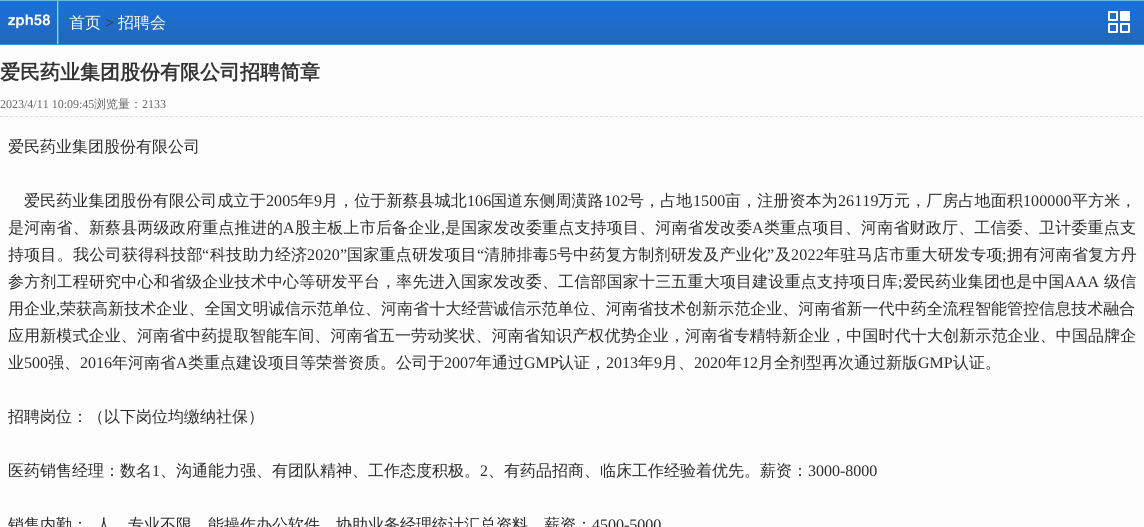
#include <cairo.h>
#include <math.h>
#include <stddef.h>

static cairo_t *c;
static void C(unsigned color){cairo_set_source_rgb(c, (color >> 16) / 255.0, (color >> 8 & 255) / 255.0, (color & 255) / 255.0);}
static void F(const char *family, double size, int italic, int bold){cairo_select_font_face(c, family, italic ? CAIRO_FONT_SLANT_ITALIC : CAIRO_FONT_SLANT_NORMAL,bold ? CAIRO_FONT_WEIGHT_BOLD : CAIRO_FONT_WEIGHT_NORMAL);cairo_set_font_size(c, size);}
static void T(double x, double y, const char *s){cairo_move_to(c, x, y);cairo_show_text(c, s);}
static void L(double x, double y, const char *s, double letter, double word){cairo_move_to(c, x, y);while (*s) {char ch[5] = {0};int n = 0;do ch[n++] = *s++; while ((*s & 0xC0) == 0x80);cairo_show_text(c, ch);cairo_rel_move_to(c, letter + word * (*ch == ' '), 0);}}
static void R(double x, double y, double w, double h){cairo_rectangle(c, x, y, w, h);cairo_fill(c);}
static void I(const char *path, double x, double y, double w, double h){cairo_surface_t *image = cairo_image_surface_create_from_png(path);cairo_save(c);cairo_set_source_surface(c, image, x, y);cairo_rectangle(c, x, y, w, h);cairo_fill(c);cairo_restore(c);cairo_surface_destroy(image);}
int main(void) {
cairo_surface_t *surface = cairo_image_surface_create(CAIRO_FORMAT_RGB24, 1144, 527);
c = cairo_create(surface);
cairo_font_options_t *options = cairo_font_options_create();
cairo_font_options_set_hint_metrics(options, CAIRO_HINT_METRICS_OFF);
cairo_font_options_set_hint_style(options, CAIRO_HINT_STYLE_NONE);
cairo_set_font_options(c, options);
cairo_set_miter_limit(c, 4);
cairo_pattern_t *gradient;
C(0xfdfdfd);
cairo_paint(c);
gradient = cairo_pattern_create_linear(572,1,572,44);
cairo_pattern_add_color_stop_rgba(gradient,0,0.098,0.443,0.859,1);
cairo_pattern_add_color_stop_rgba(gradient,1,0.137,0.404,0.718,1);
cairo_set_source(c,gradient);
cairo_pattern_destroy(gradient);
R(0,1,1144,43);
C(0x68b6e2);
R(0,0,1144,1);
C(0x3097d0);
R(0,44,1144,1);
I("1.png",8,14,42,15);
R(58,1,1,43);
C(0x8ed0f6);
R(57,1,1,43);
F("WenQuanYi Zen Hei Medium",16,0,0);
C(0xffffff);
T(69,28,"首页");
F("Liberation Serif",16,0,0);
C(0x333333);
T(105,28,">");
F("WenQuanYi Zen Hei Medium",16,0,0);
C(0xffffff);
T(118,28,"招聘会");
I("2.png",1108,11,22,22);
F("WenQuanYi Zen Hei",20,0,1);
C(0x333333);
T(0,79,"爱民药业集团股份有限公司招聘简章");
cairo_new_path(c);
cairo_move_to(c,0,116.5);
cairo_line_to(c,1144,116.5);
C(0xdddddd);
cairo_set_line_width(c,1);
cairo_set_dash(c,(double[]){3,2},2,0);
cairo_stroke(c);
F("Liberation Serif",12,0,0);
C(0x666666);
T(0,108,"2023/4/11 10:09:45");
F("WenQuanYi Zen Hei Medium",12,0,0);
T(94,108,"浏览量：");
F("Liberation Serif",12,0,0);
T(142,108,"2133");
F("WenQuanYi Zen Hei Medium",16,0,0);
C(0x2c2c2c);
T(8,152,"爱民药业集团股份有限公司");
L(24,206,"爱民药业集团股份有限公司成立于",.1,0);
F("Liberation Serif",16,0,0);
L(266,206,"2005",.1,0);
F("WenQuanYi Zen Hei Medium",16,0,0);
L(298,206,"年",.1,0);
F("Liberation Serif",16,0,0);
L(314,206,"9",.1,0);
F("WenQuanYi Zen Hei Medium",16,0,0);
L(322,206,"月，位于新蔡县城北",.1,0);
F("Liberation Serif",16,0,0);
L(467,206,"106",.1,0);
F("WenQuanYi Zen Hei Medium",16,0,0);
L(491,206,"国道东侧周潢路",.1,0);
F("Liberation Serif",16,0,0);
L(604,206,"102",.1,0);
F("WenQuanYi Zen Hei Medium",16,0,0);
L(628,206,"号，占地",.1,0);
F("Liberation Serif",16,0,0);
L(693,206,"1500",.1,0);
F("WenQuanYi Zen Hei Medium",16,0,0);
L(725,206,"亩，注册资本为",.1,0);
F("Liberation Serif",16,0,0);
L(838,206,"26119",.1,0);
F("WenQuanYi Zen Hei Medium",16,0,0);
L(878,206,"万元，厂房占地面积",.1,0);
F("Liberation Serif",16,0,0);
L(1023,206,"100000",.1,0);
F("WenQuanYi Zen Hei Medium",16,0,0);
L(1072,206,"平方米，",.1,0);
L(8,233,"是河南省、新蔡县两级政府重点推进的",.18,0);
F("Liberation Serif",16,0,0);
L(283,233,"A",.18,0);
F("WenQuanYi Zen Hei Medium",16,0,0);
L(295,233,"股主板上市后备企业",.18,0);
L(445,233,"是国家发改委重点支持项目、河南省发改委",.18,0);
F("Liberation Serif",16,0,0);
L(752,233,"A",.18,0);
F("WenQuanYi Zen Hei Medium",16,0,0);
L(764,233,"类重点项目、河南省财政厅、工信委、卫计委重点支",.18,0);
F("Liberation Serif",16,0,0);
L(441,233,",",.18,0);
F("WenQuanYi Zen Hei Medium",16,0,0);
L(8,260,"持项目。我公司获得科技部",.25,0);
F("Liberation Serif",16,0,0);
L(202,260,"“",.25,0);
F("WenQuanYi Zen Hei Medium",16,0,0);
L(210,260,"科技助力经济",.25,0);
F("Liberation Serif",16,0,0);
L(307,260,"2020”",.25,0);
F("WenQuanYi Zen Hei Medium",16,0,0);
L(347,260,"国家重点研发项目",.25,0);
F("Liberation Serif",16,0,0);
L(477,260,"“",.25,0);
F("WenQuanYi Zen Hei Medium",16,0,0);
L(484,260,"清肺排毒",.25,0);
F("Liberation Serif",16,0,0);
L(549,260,"5",.25,0);
F("WenQuanYi Zen Hei Medium",16,0,0);
L(557,260,"号中药复方制剂研发及产业化",.25,0);
F("Liberation Serif",16,0,0);
L(767,260,"”",.25,0);
F("WenQuanYi Zen Hei Medium",16,0,0);
L(775,260,"及",.25,0);
F("Liberation Serif",16,0,0);
L(791,260,"2022",.25,0);
F("WenQuanYi Zen Hei Medium",16,0,0);
L(824,260,"年驻马店市重大研发专项",.25,0);
F("Liberation Serif",16,0,0);
L(1002,260,";",.25,0);
F("WenQuanYi Zen Hei Medium",16,0,0);
L(1007,260,"拥有河南省复方丹",.25,0);
L(8,287,"参方剂工程研究中心和省级企业技术中心等研发平台，率先进入国家发改委、工信部国家十三五重大项目建设重点支持项日库",.18,0);
F("Liberation Serif",16,0,0);
L(898,287,";",.18,0);
F("WenQuanYi Zen Hei Medium",16,0,0);
L(903,287,"爱民药业集团也是中国",.18,0);
F("Liberation Serif",16,0,0);
L(1064,287,"AAA",.18,0);
F("WenQuanYi Zen Hei Medium",16,0,0);
L(1104,287,"级信",.18,0);
L(8,314,"用企业",.05,0);
F("Liberation Serif",16,0,0);
L(56,314,",",.05,0);
F("WenQuanYi Zen Hei Medium",16,0,0);
L(60,314,"荣获高新技术企业、全国文明诚信示范单位、河南省十大经营诚信示范单位、河南省技术创新示范企业、河南省新一代中药全流程智能管控信息技术融合",.05,0);
L(8,341,"应用新模式企业、河南省中药提取智能车间、河南省五一劳动奖状、河南省知识产权优势企业，河南省专精特新企业，中国时代十大创新示范企业、中国品牌企",.12,0);
T(8,368,"业");
F("Liberation Serif",16,0,0);
T(24,368,"500");
F("WenQuanYi Zen Hei Medium",16,0,0);
T(48,368,"强、");
F("Liberation Serif",16,0,0);
T(80,368,"2016");
F("WenQuanYi Zen Hei Medium",16,0,0);
T(112,368,"年河南省");
F("Liberation Serif",16,0,0);
T(176,368,"A");
F("WenQuanYi Zen Hei Medium",16,0,0);
T(188,368,"类重点建设项目等荣誉资质。公司于");
F("Liberation Serif",16,0,0);
T(444,368,"2007");
F("WenQuanYi Zen Hei Medium",16,0,0);
T(476,368,"年通过");
F("Liberation Serif",16,0,0);
T(524,368,"GMP");
F("WenQuanYi Zen Hei Medium",16,0,0);
T(558,368,"认证，");
F("Liberation Serif",16,0,0);
T(606,368,"2013");
F("WenQuanYi Zen Hei Medium",16,0,0);
T(638,368,"年");
F("Liberation Serif",16,0,0);
T(654,368,"9");
F("WenQuanYi Zen Hei Medium",16,0,0);
T(662,368,"月、");
F("Liberation Serif",16,0,0);
T(694,368,"2020");
F("WenQuanYi Zen Hei Medium",16,0,0);
T(726,368,"年");
F("Liberation Serif",16,0,0);
T(742,368,"12");
F("WenQuanYi Zen Hei Medium",16,0,0);
T(758,368,"月全剂型再次通过新版");
F("Liberation Serif",16,0,0);
T(918,368,"GMP");
F("WenQuanYi Zen Hei Medium",16,0,0);
T(953,368,"认证。");
T(8,422,"招聘岗位：（以下岗位均缴纳社保）");
T(8,476,"医药销售经理：数名");
F("Liberation Serif",16,0,0);
T(152,476,"1");
F("WenQuanYi Zen Hei Medium",16,0,0);
T(160,476,"、沟通能力强、有团队精神、工作态度积极。");
F("Liberation Serif",16,0,0);
T(480,476,"2");
F("WenQuanYi Zen Hei Medium",16,0,0);
T(488,476,"、有药品招商、临床工作经验着优先。薪资：");
F("Liberation Serif",16,0,0);
T(808,476,"3000-8000");
F("WenQuanYi Zen Hei Medium",16,0,0);
T(8,530,"销售内勤：");
T(96,530,"人，专业不限，能操作办公软件，协助业务经理统计汇总资料。薪资：");
F("Liberation Serif",16,0,0);
T(592,530,"4500-5000");
cairo_surface_write_to_png(surface, "o.png");
cairo_font_options_destroy(options);
cairo_destroy(c);
cairo_surface_destroy(surface);
return 0;
}
